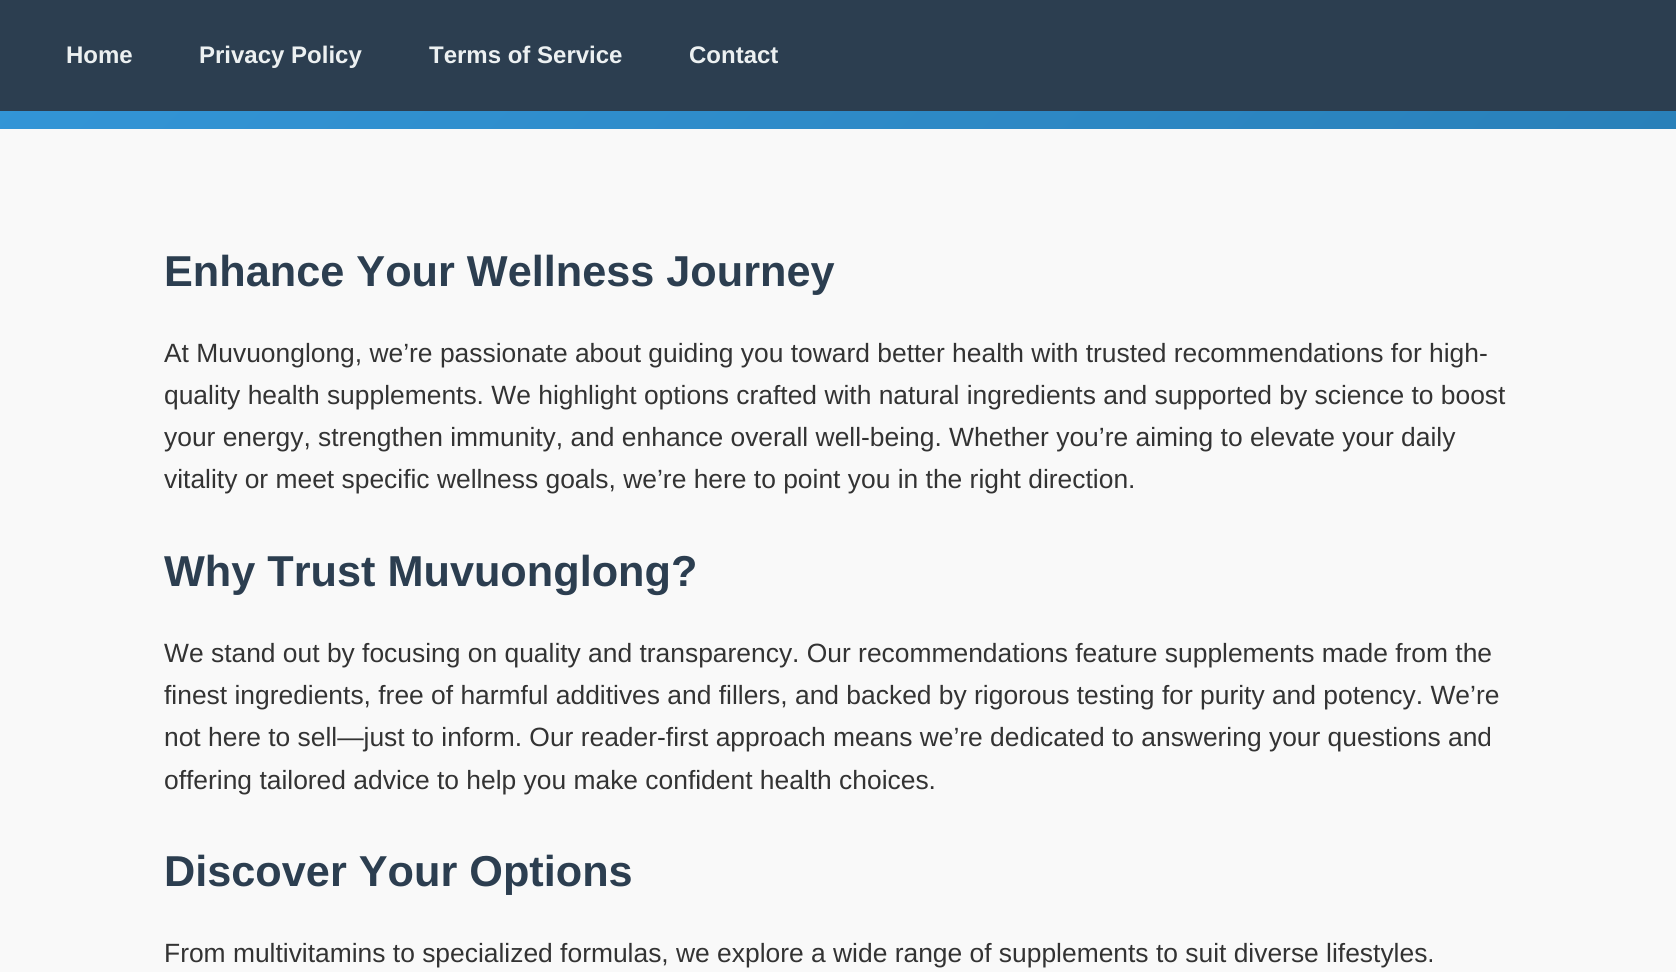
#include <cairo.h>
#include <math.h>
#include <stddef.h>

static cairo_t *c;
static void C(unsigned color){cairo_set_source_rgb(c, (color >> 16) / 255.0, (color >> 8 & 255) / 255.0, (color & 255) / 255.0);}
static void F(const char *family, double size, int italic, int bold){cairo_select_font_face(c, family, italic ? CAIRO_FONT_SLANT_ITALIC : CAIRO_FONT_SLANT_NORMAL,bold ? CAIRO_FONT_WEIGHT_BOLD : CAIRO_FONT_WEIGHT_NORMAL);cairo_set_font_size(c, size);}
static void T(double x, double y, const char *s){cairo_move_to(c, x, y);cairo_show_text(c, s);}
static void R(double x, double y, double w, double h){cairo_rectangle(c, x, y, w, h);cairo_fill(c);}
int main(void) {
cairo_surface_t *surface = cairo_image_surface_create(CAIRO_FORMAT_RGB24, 1676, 972);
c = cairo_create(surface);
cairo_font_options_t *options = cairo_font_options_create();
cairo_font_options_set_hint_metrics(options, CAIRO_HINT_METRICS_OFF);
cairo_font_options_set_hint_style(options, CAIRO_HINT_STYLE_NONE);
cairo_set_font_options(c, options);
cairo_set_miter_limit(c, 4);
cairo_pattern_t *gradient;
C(0xf9f9f9);
cairo_paint(c);
C(0x2c3e50);
R(0,0,1676,111);
F("Liberation Sans",24,0,1);
C(0xecf0f1);
T(66,63,"Home");
T(199,63,"Privacy Policy");
T(429,63,"Terms of Service");
T(689,63,"Contact");
gradient = cairo_pattern_create_linear(347,-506,1330,476);
cairo_pattern_add_color_stop_rgba(gradient,0,0.204,0.596,0.859,1);
cairo_pattern_add_color_stop_rgba(gradient,1,0.161,0.502,0.725,1);
cairo_set_source(c,gradient);
cairo_pattern_destroy(gradient);
R(0,111,1676,18);
F("Liberation Sans",43.25,0,1);
C(0x2c3e50);
T(164,286,"Enhance Your Wellness Journey");
F("Liberation Sans",26.4,0,0);
C(0x333333);
T(164,362,"At Muvuonglong, we’re passionate about guiding you toward better health with trusted recommendations for high-");
T(164,404,"quality health supplements. We highlight options crafted with natural ingredients and supported by science to boost");
T(164,446,"your energy, strengthen immunity, and enhance overall well-being. Whether you’re aiming to elevate your daily");
T(164,488,"vitality or meet specific wellness goals, we’re here to point you in the right direction.");
F("Liberation Sans",43.25,0,1);
C(0x2c3e50);
T(164,586,"Why Trust Muvuonglong?");
F("Liberation Sans",26.4,0,0);
C(0x333333);
T(164,662,"We stand out by focusing on quality and transparency. Our recommendations feature supplements made from the");
T(164,704,"finest ingredients, free of harmful additives and fillers, and backed by rigorous testing for purity and potency. We’re");
T(164,746,"not here to sell—just to inform. Our reader-first approach means we’re dedicated to answering your questions and");
T(164,789,"offering tailored advice to help you make confident health choices.");
F("Liberation Sans",43.25,0,1);
C(0x2c3e50);
T(164,886,"Discover Your Options");
F("Liberation Sans",26.4,0,0);
C(0x333333);
T(164,962,"From multivitamins to specialized formulas, we explore a wide range of supplements to suit diverse lifestyles.");
cairo_surface_write_to_png(surface, "o.png");
cairo_font_options_destroy(options);
cairo_destroy(c);
cairo_surface_destroy(surface);
return 0;
}
